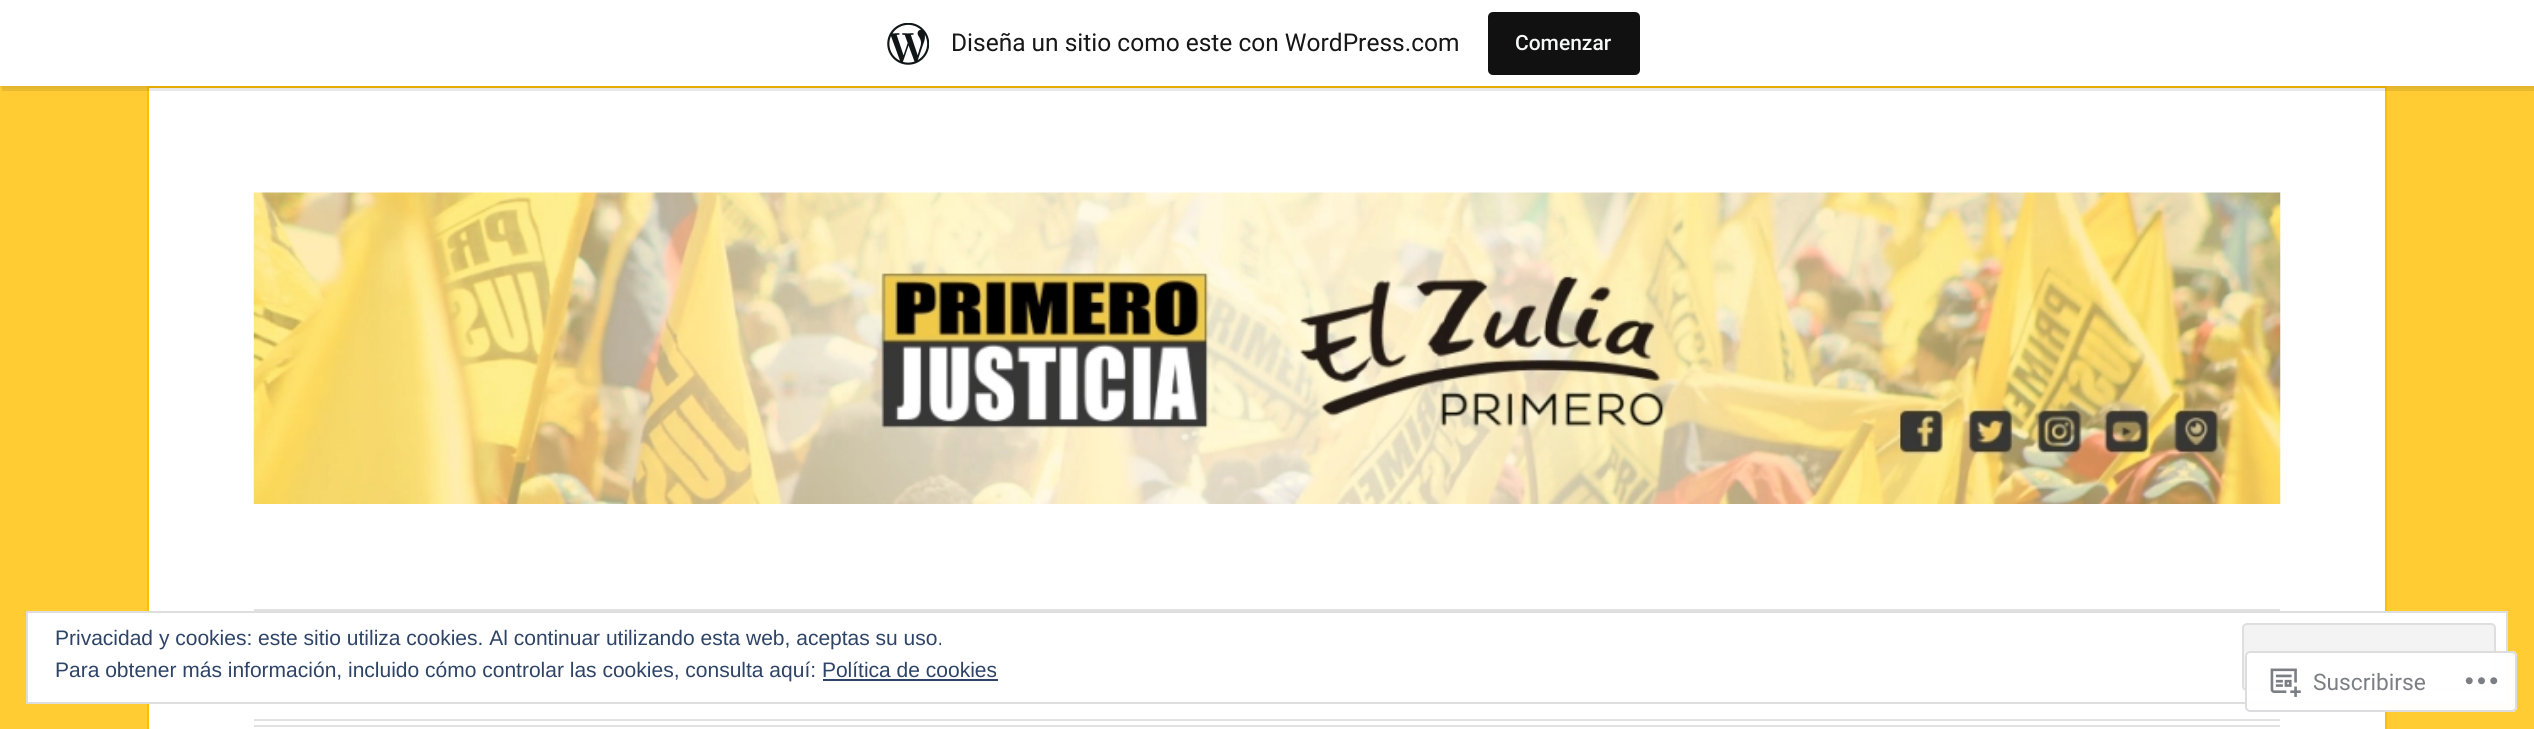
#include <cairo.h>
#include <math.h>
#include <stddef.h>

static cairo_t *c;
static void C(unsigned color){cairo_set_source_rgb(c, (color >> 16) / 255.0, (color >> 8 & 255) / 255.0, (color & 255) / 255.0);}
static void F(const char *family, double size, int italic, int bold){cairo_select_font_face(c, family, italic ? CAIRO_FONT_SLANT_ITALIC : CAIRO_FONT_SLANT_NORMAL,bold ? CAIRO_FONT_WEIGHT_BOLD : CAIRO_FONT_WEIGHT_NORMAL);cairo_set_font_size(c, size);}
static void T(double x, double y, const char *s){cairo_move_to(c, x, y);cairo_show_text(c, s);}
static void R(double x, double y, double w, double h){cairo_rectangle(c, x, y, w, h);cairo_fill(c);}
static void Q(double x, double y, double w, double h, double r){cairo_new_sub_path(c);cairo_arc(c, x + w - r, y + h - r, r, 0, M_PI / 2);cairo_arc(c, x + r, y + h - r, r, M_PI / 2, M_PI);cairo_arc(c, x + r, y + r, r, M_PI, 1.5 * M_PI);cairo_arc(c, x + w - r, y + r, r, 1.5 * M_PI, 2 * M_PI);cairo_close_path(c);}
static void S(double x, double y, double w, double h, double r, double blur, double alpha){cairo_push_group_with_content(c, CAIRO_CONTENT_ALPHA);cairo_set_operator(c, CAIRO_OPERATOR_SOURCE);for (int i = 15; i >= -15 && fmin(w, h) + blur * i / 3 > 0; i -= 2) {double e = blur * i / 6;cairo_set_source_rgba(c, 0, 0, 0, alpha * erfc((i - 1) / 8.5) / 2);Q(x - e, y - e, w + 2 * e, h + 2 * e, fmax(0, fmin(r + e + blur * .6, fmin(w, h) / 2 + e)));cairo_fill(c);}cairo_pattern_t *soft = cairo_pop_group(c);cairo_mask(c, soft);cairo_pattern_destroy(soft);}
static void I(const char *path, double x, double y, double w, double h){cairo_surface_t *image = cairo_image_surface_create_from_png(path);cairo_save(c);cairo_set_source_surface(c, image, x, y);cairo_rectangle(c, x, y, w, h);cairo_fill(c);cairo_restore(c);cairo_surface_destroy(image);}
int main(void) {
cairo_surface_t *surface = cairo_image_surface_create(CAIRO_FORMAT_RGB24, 2534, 729);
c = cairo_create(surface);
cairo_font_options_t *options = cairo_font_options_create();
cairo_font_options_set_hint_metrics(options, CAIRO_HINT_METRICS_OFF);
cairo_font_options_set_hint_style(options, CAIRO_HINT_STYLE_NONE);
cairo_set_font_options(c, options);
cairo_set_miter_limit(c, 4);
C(0xffcc33);
cairo_paint(c);
C(0xffffff);
cairo_rectangle(c,148,87,2238,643);
cairo_fill_preserve(c);
C(0xffbf00);
cairo_stroke(c);
C(0x000000);
S(0,2,2534,86,0,2,.05);
cairo_set_source_rgba(c,0,0,0,0.08);
cairo_new_path(c);
cairo_move_to(c,2,86);
cairo_line_to(c,2,91);
cairo_line_to(c,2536,91);
cairo_line_to(c,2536,5);
cairo_line_to(c,2534,5);
cairo_line_to(c,2534,86);
cairo_close_path(c);
cairo_fill(c);
C(0xffffff);
R(0,0,2534,86);
I("1.png",887,23,42,42);
F("Roboto",24.5,0,0);
C(0x171717);
T(951,51,"Diseña un sitio como este con WordPress.com");
C(0x111111);
Q(1488,12,152,63,5);
cairo_fill(c);
F("Roboto Medium",21,0,0);
C(0xf6f7f7);
T(1515,50,"Comenzar");
I("2.png",253,192,2028,312);
C(0xe1e1e1);
R(254,609,2026,2);
R(254,719,2026,2);
R(254,725,2026,2);
C(0xffffff);
cairo_rectangle(c,27,612,2480,91);
cairo_fill_preserve(c);
C(0xdedede);
cairo_stroke(c);
F("Arimo",21,0,0);
C(0x2e4467);
T(55,645,"Privacidad y cookies: este sitio utiliza cookies. Al continuar utilizando esta web, aceptas su uso.");
C(0xf3f3f3);
Q(2243,624,252,66,4);
cairo_fill_preserve(c);
C(0xdedede);
cairo_stroke(c);
C(0x2e4467);
T(55,677,"Para obtener más información, incluido cómo controlar las cookies, consulta aquí: Política de cookies");
R(823,679,175,2);
cairo_set_source_rgba(c,1,1,1,0.98);
Q(2245,651,272,61,5);
cairo_fill(c);
Q(2246,652,270,59,4);
cairo_set_source_rgba(c,0.863,0.863,0.871,0.98);
cairo_stroke(c);
I("3.png",2270,668,31,29);
F("Roboto",22.75,0,0);
C(0x7b7f84);
T(2313,690,"Suscribirse");
I("4.png",2465,677,33,8);
cairo_surface_write_to_png(surface, "o.png");
cairo_font_options_destroy(options);
cairo_destroy(c);
cairo_surface_destroy(surface);
return 0;
}
